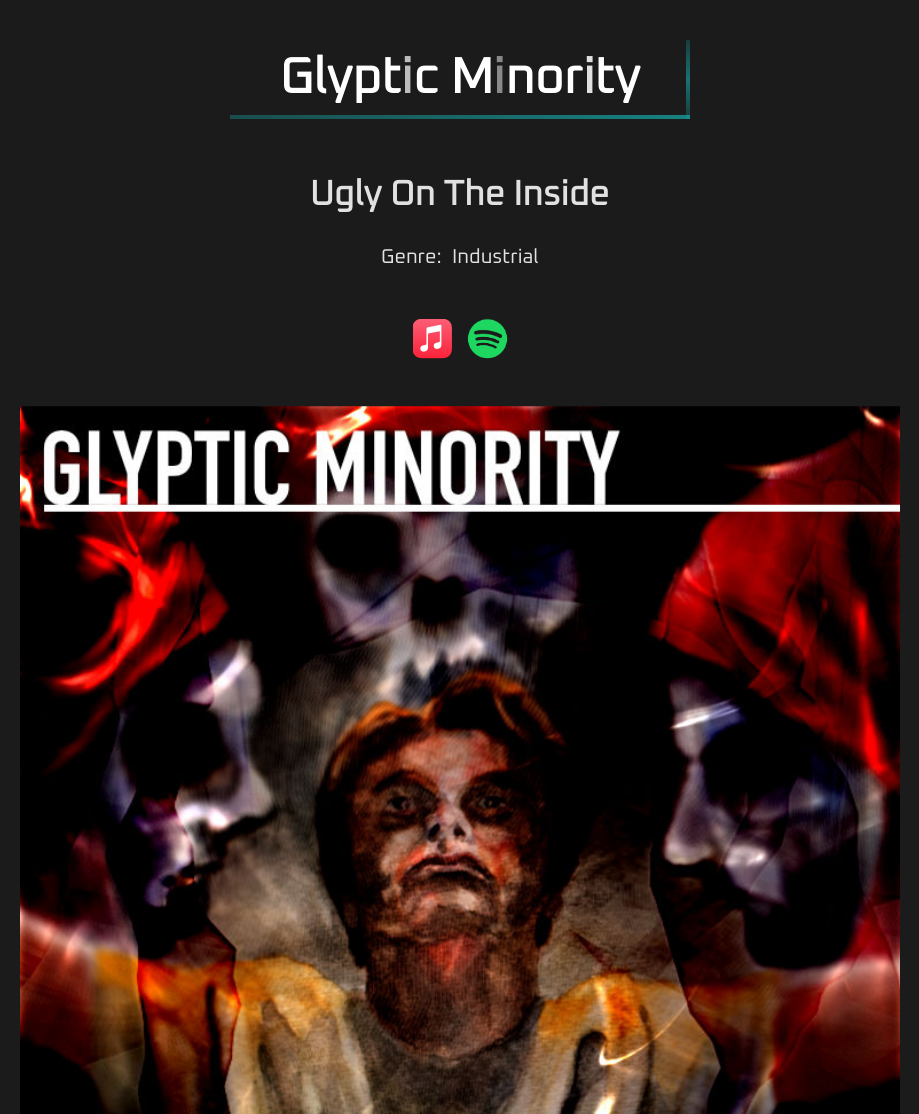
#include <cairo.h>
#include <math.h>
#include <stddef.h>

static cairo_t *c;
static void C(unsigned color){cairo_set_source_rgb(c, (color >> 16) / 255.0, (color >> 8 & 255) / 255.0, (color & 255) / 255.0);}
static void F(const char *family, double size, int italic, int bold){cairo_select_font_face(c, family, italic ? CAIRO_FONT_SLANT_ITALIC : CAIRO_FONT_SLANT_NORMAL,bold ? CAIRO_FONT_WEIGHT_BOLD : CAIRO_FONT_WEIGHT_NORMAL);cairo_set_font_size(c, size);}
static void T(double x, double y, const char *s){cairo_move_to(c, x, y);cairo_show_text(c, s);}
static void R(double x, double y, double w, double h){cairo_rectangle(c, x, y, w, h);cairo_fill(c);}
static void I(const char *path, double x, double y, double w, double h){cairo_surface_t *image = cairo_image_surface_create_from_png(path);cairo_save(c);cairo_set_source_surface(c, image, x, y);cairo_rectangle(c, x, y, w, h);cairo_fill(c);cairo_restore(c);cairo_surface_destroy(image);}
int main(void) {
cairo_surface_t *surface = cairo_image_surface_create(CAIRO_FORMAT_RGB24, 919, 1114);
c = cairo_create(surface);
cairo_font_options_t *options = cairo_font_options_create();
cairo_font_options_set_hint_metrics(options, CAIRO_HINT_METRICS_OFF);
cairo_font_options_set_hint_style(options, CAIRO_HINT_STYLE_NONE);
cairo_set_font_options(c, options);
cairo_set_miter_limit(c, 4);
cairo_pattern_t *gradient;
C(0x1b1b1b);
cairo_paint(c);
C(0x1a3d3d);
R(230,115,460,4);
F("Oxanium",50,0,1);
C(0xffffff);
T(280,93,"Glypt c M nor ty");
gradient = cairo_pattern_create_linear(688,119,688,40);
cairo_pattern_add_color_stop_rgba(gradient,0,0.102,0.239,0.239,1);
cairo_pattern_add_color_stop_rgba(gradient,.5,0.094,0.447,0.447,1);
cairo_pattern_add_color_stop_rgba(gradient,1,0.102,0.239,0.239,1);
cairo_set_source(c,gradient);
cairo_pattern_destroy(gradient);
R(686,40,4,79);
gradient = cairo_pattern_create_linear(688,119,688,40);
cairo_pattern_add_color_stop_rgba(gradient,0,0.102,0.306,0.306,1);
cairo_pattern_add_color_stop_rgba(gradient,.5,0.098,0.408,0.408,1);
cairo_pattern_add_color_stop_rgba(gradient,1,0.102,0.306,0.306,1);
cairo_set_source(c,gradient);
cairo_pattern_destroy(gradient);
R(686,115,4,4);
C(0xbdbdbd);
T(401,93,"i");
C(0x898989);
T(493,93,"i");
C(0xe1e1e1);
T(583,93,"i");
gradient = cairo_pattern_create_linear(230,117,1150,117);
cairo_pattern_add_color_stop_rgba(gradient,0,0.098,0.369,0.369,.5);
cairo_pattern_add_color_stop_rgba(gradient,.5,0.078,0.784,0.784,.5);
cairo_pattern_add_color_stop_rgba(gradient,1,0.098,0.369,0.369,.5);
cairo_set_source(c,gradient);
cairo_pattern_destroy(gradient);
R(230,115,460,4);
F("Oxanium",35,0,1);
C(0xe1e1e1);
T(310,205,"Ugly On The Inside");
F("Oxanium ExtraLight",20,0,0);
T(381,263,"Genre:");
T(452,263,"Industrial");
I("1.png",413,319,39,40);
I("2.png",467,318,41,41);
I("3.png",20,406,880,708);
cairo_surface_write_to_png(surface, "o.png");
cairo_font_options_destroy(options);
cairo_destroy(c);
cairo_surface_destroy(surface);
return 0;
}
